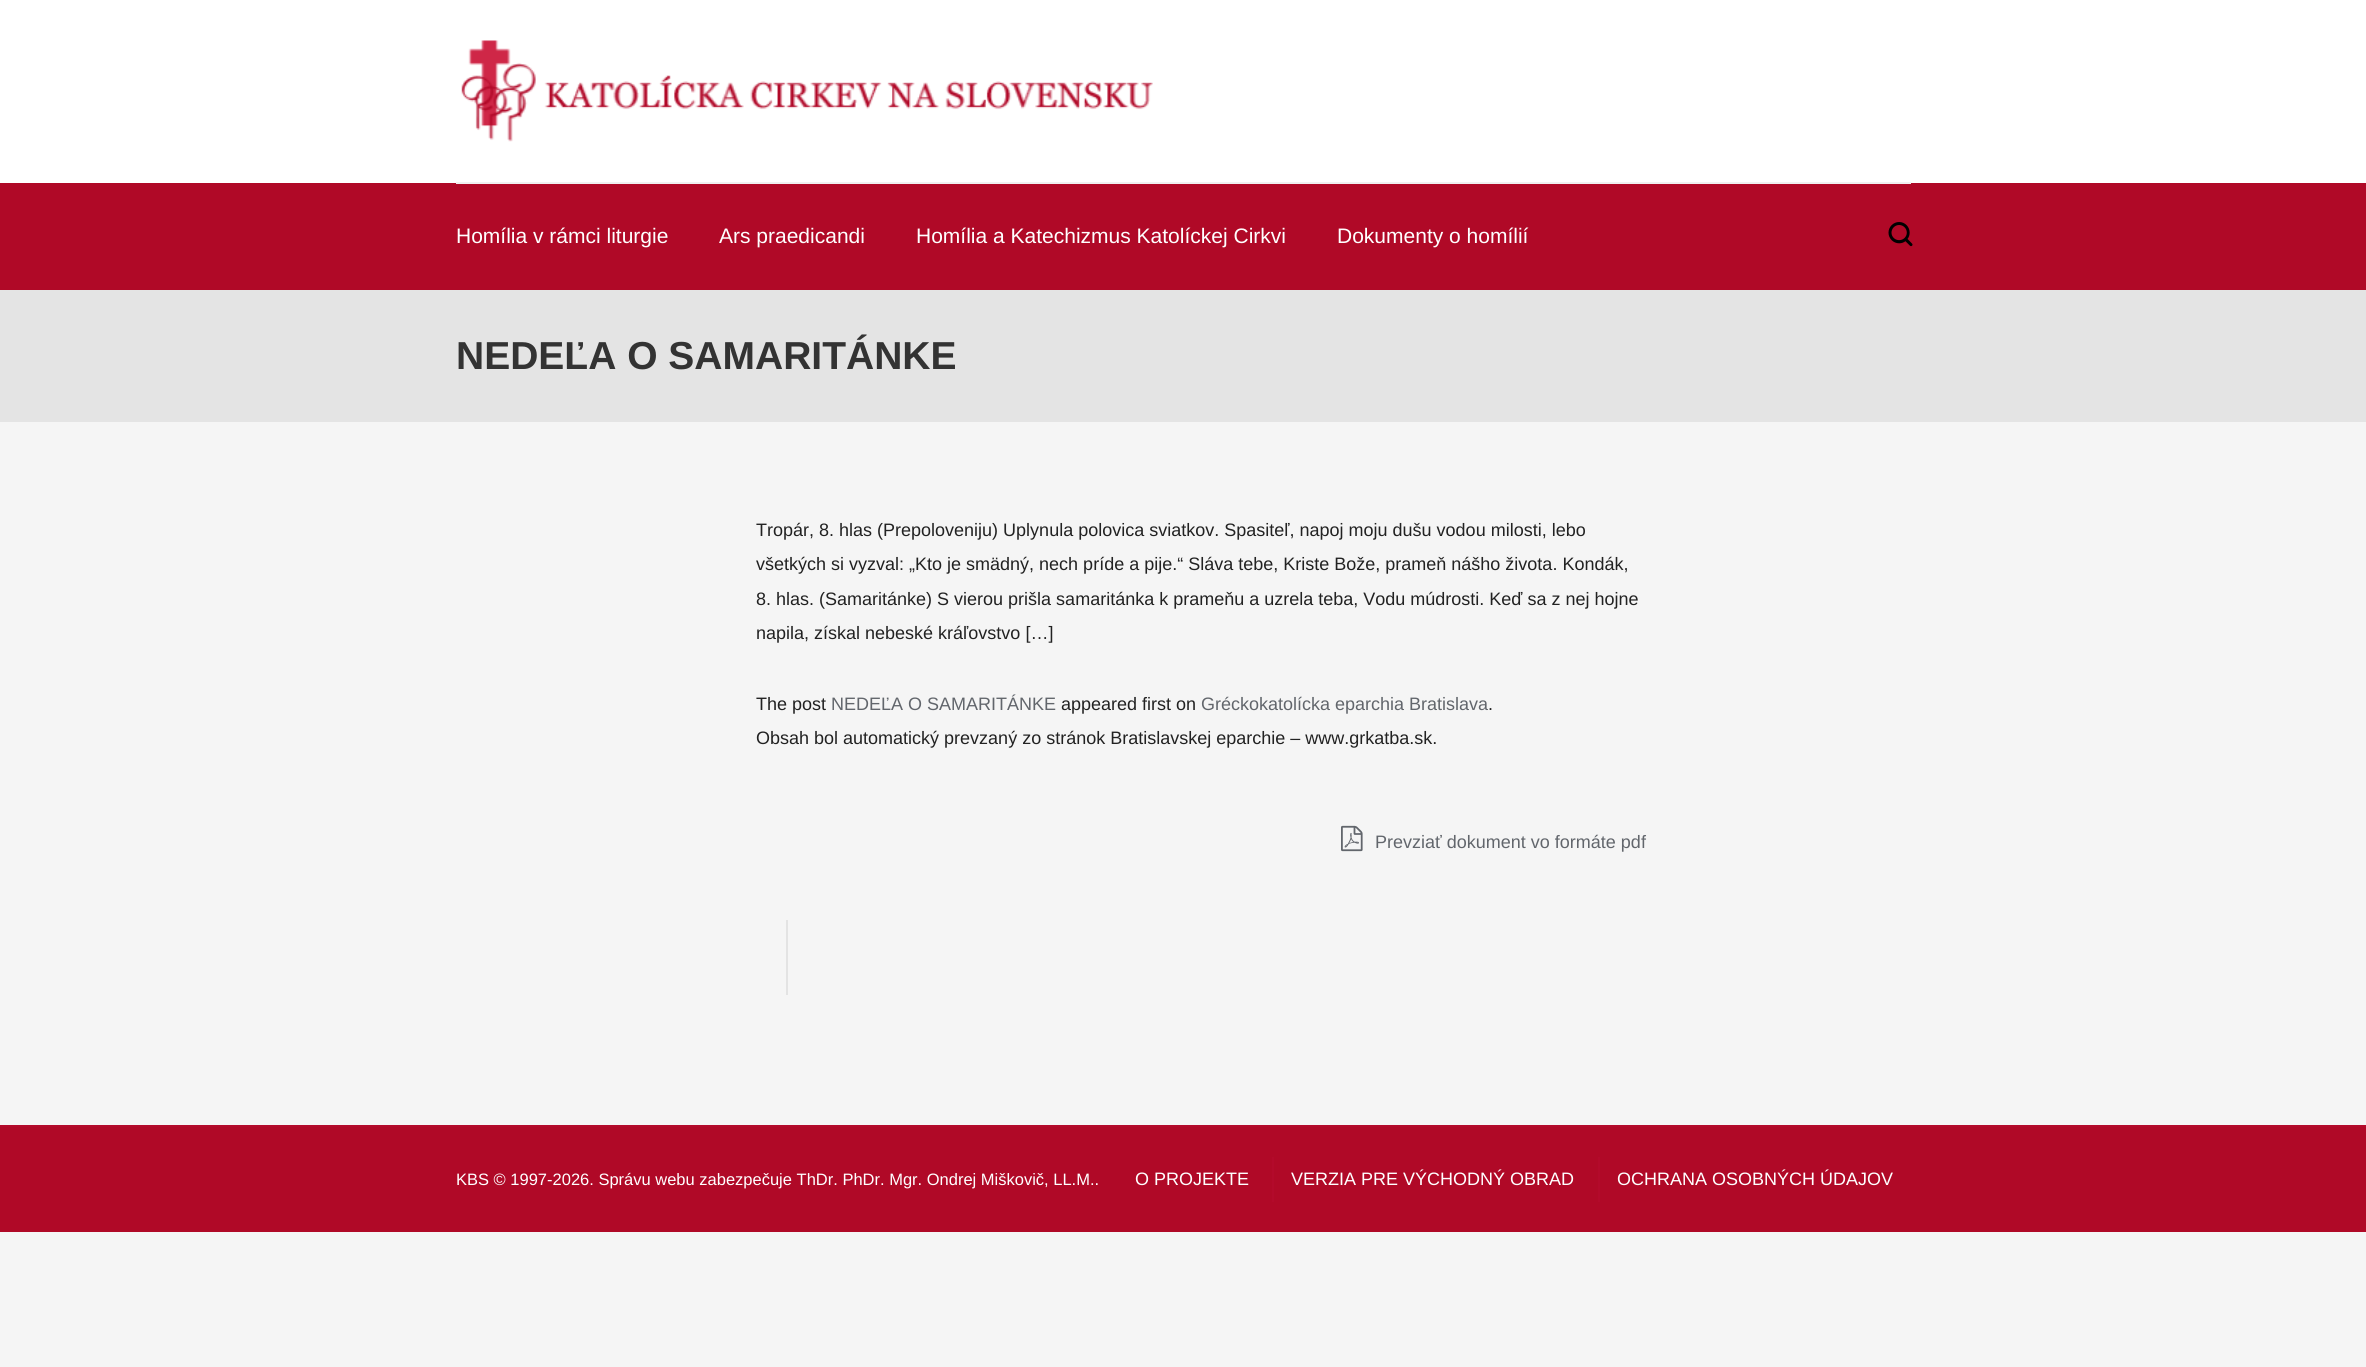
#include <cairo.h>
#include <math.h>
#include <stddef.h>

static cairo_t *c;
static void C(unsigned color){cairo_set_source_rgb(c, (color >> 16) / 255.0, (color >> 8 & 255) / 255.0, (color & 255) / 255.0);}
static void F(const char *family, double size, int italic, int bold){cairo_select_font_face(c, family, italic ? CAIRO_FONT_SLANT_ITALIC : CAIRO_FONT_SLANT_NORMAL,bold ? CAIRO_FONT_WEIGHT_BOLD : CAIRO_FONT_WEIGHT_NORMAL);cairo_set_font_size(c, size);}
static void T(double x, double y, const char *s){cairo_move_to(c, x, y);cairo_show_text(c, s);}
static void R(double x, double y, double w, double h){cairo_rectangle(c, x, y, w, h);cairo_fill(c);}
static void I(const char *path, double x, double y, double w, double h){cairo_surface_t *image = cairo_image_surface_create_from_png(path);cairo_save(c);cairo_set_source_surface(c, image, x, y);cairo_rectangle(c, x, y, w, h);cairo_fill(c);cairo_restore(c);cairo_surface_destroy(image);}
int main(void) {
cairo_surface_t *surface = cairo_image_surface_create(CAIRO_FORMAT_RGB24, 2366, 1367);
c = cairo_create(surface);
cairo_font_options_t *options = cairo_font_options_create();
cairo_font_options_set_hint_metrics(options, CAIRO_HINT_METRICS_OFF);
cairo_font_options_set_hint_style(options, CAIRO_HINT_STYLE_NONE);
cairo_set_font_options(c, options);
cairo_set_miter_limit(c, 4);
C(0xf5f5f5);
cairo_paint(c);
C(0xffffff);
R(0,0,2366,183);
I("1.png",461,40,692,102);
C(0xb00927);
R(0,183,2366,107);
C(0xf0f0f0);
R(456,182,1455,2);
F("Liberation Sans",21,0,0);
C(0xffffff);
T(456,243,"Homília v rámci liturgie");
T(719,243,"Ars praedicandi");
T(916,243,"Homília a Katechizmus Katolíckej Cirkvi");
T(1337,243,"Dokumenty o homílií");
I("2.png",1888,222,25,25);
C(0xe4e4e4);
R(0,290,2366,132);
F("Liberation Sans",39,0,1);
C(0x333333);
T(456,369,"NEDEĽA O SAMARITÁNKE");
F("Liberation Sans",18,0,0);
C(0x222222);
T(756,536,"Tropár, 8. hlas (Prepoloveniju) Uplynula polovica sviatkov. Spasiteľ, napoj moju dušu vodou milosti, lebo");
T(756,570,"všetkých si vyzval: „Kto je smädný, nech príde a pije.“ Sláva tebe, Kriste Bože, prameň nášho života. Kondák,");
T(756,605,"8. hlas. (Samaritánke) S vierou prišla samaritánka k prameňu a uzrela teba, Vodu múdrosti. Keď sa z nej hojne");
T(756,639,"napila, získal nebeské kráľovstvo […]");
T(756,710,"The post");
C(0x62666c);
T(831,710,"NEDEĽA O SAMARITÁNKE");
C(0x222222);
T(1061,710,"appeared first on");
C(0x62666c);
T(1201,710,"Gréckokatolícka eparchia Bratislava");
C(0x222222);
T(1488,710,".");
T(756,744,"Obsah bol automatický prevzaný zo stránok Bratislavskej eparchie – www.grkatba.sk.");
I("3.png",1341,825,22,27);
C(0x62666c);
T(1375,848,"Prevziať dokument vo formáte pdf");
C(0xe3e3e3);
R(786,920,2,75);
C(0xb00927);
R(0,1127,2366,105);
C(0xb30a2b);
R(0,1125,2366,2);
F("Liberation Sans",16.5,0,0);
C(0xffffff);
T(456,1185,"KBS © 1997-2026. Správu webu zabezpečuje ThDr. PhDr. Mgr. Ondrej Miškovič, LL.M..");
F("Liberation Sans",18,0,0);
T(1135,1185,"O PROJEKTE");
C(0xb30a2b);
R(1272,1157,2,45);
C(0xffffff);
T(1291,1185,"VERZIA PRE VÝCHODNÝ OBRAD");
C(0xb30a2b);
R(1598,1157,2,45);
C(0xffffff);
T(1617,1185,"OCHRANA OSOBNÝCH ÚDAJOV");
cairo_surface_write_to_png(surface, "o.png");
cairo_font_options_destroy(options);
cairo_destroy(c);
cairo_surface_destroy(surface);
return 0;
}
